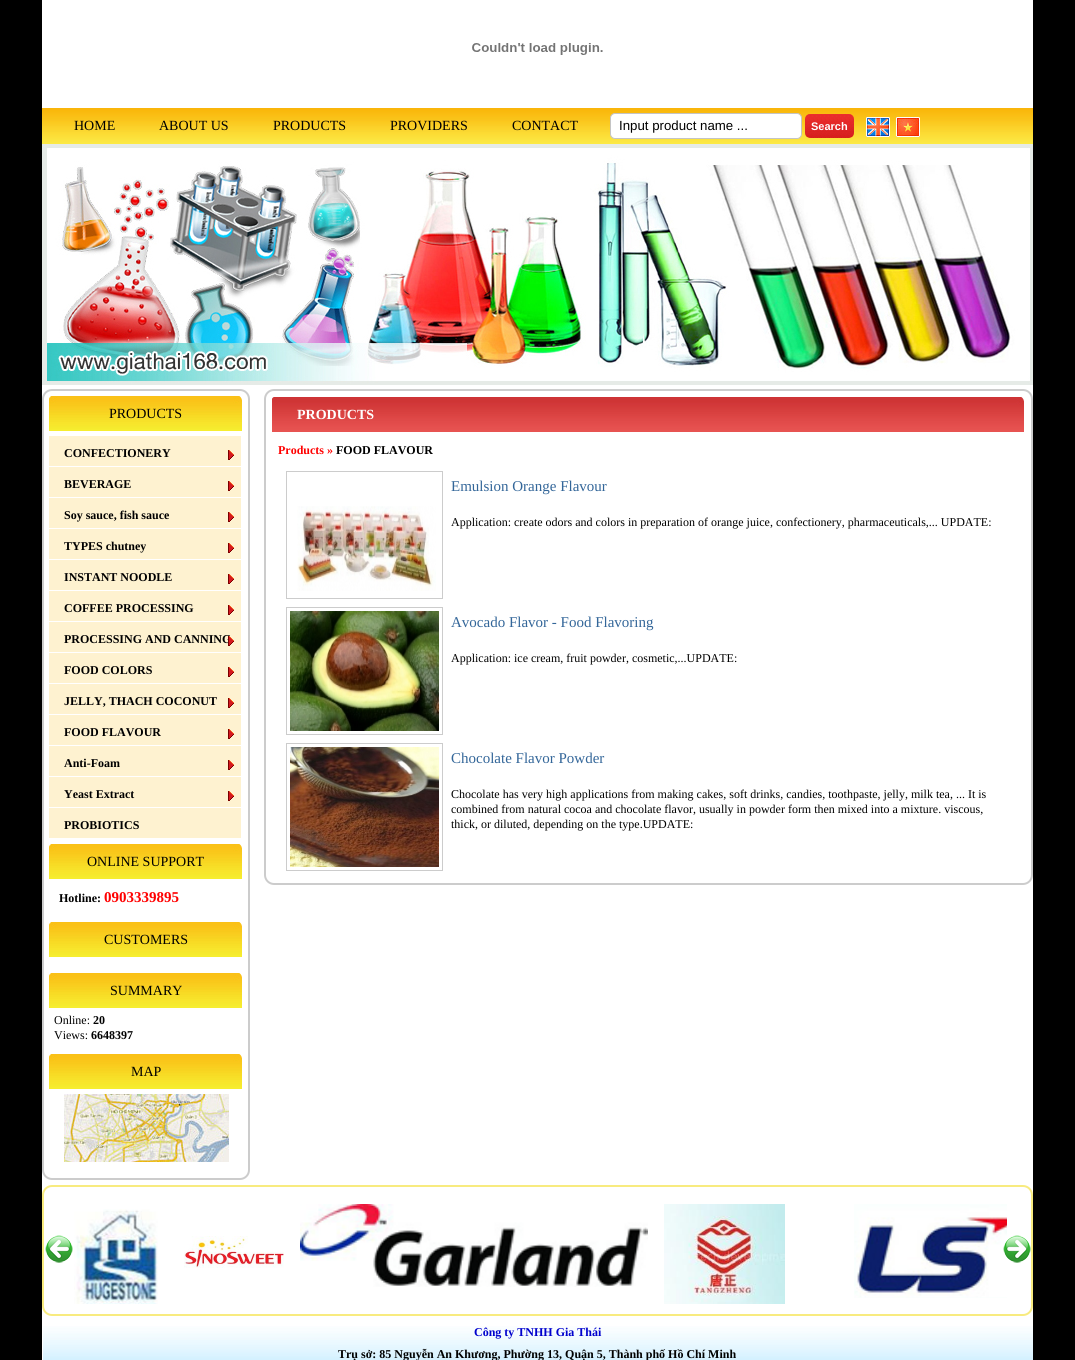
#include <cairo.h>
#include <math.h>
#include <stddef.h>

static cairo_t *c;
static void C(unsigned color){cairo_set_source_rgb(c, (color >> 16) / 255.0, (color >> 8 & 255) / 255.0, (color & 255) / 255.0);}
static void F(const char *family, double size, int italic, int bold){cairo_select_font_face(c, family, italic ? CAIRO_FONT_SLANT_ITALIC : CAIRO_FONT_SLANT_NORMAL,bold ? CAIRO_FONT_WEIGHT_BOLD : CAIRO_FONT_WEIGHT_NORMAL);cairo_set_font_size(c, size);}
static void T(double x, double y, const char *s){cairo_move_to(c, x, y);cairo_show_text(c, s);}
static void R(double x, double y, double w, double h){cairo_rectangle(c, x, y, w, h);cairo_fill(c);}
static void Q(double x, double y, double w, double h, double r){cairo_new_sub_path(c);cairo_arc(c, x + w - r, y + h - r, r, 0, M_PI / 2);cairo_arc(c, x + r, y + h - r, r, M_PI / 2, M_PI);cairo_arc(c, x + r, y + r, r, M_PI, 1.5 * M_PI);cairo_arc(c, x + w - r, y + r, r, 1.5 * M_PI, 2 * M_PI);cairo_close_path(c);}
static void I(const char *path, double x, double y, double w, double h){cairo_surface_t *image = cairo_image_surface_create_from_png(path);cairo_save(c);cairo_set_source_surface(c, image, x, y);cairo_rectangle(c, x, y, w, h);cairo_fill(c);cairo_restore(c);cairo_surface_destroy(image);}
int main(void) {
cairo_surface_t *surface = cairo_image_surface_create(CAIRO_FORMAT_RGB24, 1075, 1360);
c = cairo_create(surface);
cairo_font_options_t *options = cairo_font_options_create();
cairo_font_options_set_hint_metrics(options, CAIRO_HINT_METRICS_OFF);
cairo_font_options_set_hint_style(options, CAIRO_HINT_STYLE_NONE);
cairo_set_font_options(c, options);
cairo_set_miter_limit(c, 4);
C(0x000000);
cairo_paint(c);
C(0xffffff);
R(42,0,991,1360);
I("1.png",472,43,131,12);
I("2.png",42,108,991,36);
F("Liberation Serif",14,0,0);
C(0x000000);
T(74,130,"HOME");
T(159,130,"ABOUT US");
T(273,130,"PRODUCTS");
T(390,130,"PROVIDERS");
T(512,130,"CONTACT");
C(0xffffff);
Q(610.5,113.5,191,25,4.5);
cairo_fill_preserve(c);
C(0xc4c4c4);
cairo_set_line_width(c,1);
cairo_stroke(c);
F("Liberation Sans",13.25,0,0);
C(0x000000);
T(619,130,"Input product name ...");
I("3.png",805,114,49,24);
F("Liberation Sans",11,0,1);
C(0xffffff);
T(811,130,"Search");
I("4.png",866,117,24,20);
I("5.png",896,117,24,20);
I("6.png",42,144,991,241);
Q(43,390,206,789,9);
C(0xcccccc);
cairo_set_line_width(c,2);
cairo_stroke(c);
I("7.png",49,396,193,35);
F("Liberation Serif",14,0,0);
C(0x000000);
T(109,418,"PRODUCTS");
C(0xfef2d0);
R(49,436,192,402);
C(0xffffff);
R(49,466,192,1);
F("Liberation Serif",12,0,1);
C(0x000000);
T(64,457,"CONFECTIONERY");
I("8.png",228,450,6,10);
C(0xffffff);
R(49,497,192,1);
C(0x000000);
T(64,488,"BEVERAGE");
I("8.png",228,481,6,10);
C(0xffffff);
R(49,528,192,1);
C(0x000000);
T(64,519,"Soy sauce, fish sauce");
I("8.png",228,512,6,10);
C(0xffffff);
R(49,559,192,1);
C(0x000000);
T(64,550,"TYPES chutney");
I("8.png",228,543,6,10);
C(0xffffff);
R(49,590,192,1);
C(0x000000);
T(64,581,"INSTANT NOODLE");
I("8.png",228,574,6,10);
C(0xffffff);
R(49,621,192,1);
C(0x000000);
T(64,612,"COFFEE PROCESSING");
I("8.png",228,605,6,10);
C(0xffffff);
R(49,652,192,1);
C(0x000000);
T(64,643,"PROCESSING AND CANNING");
I("8.png",228,636,6,10);
C(0xffffff);
R(49,683,192,1);
C(0x000000);
T(64,674,"FOOD COLORS");
I("8.png",228,667,6,10);
C(0xffffff);
R(49,714,192,1);
C(0x000000);
T(64,705,"JELLY, THACH COCONUT");
I("8.png",228,698,6,10);
C(0xffffff);
R(49,745,192,1);
C(0x000000);
T(64,736,"FOOD FLAVOUR");
I("8.png",228,729,6,10);
C(0xffffff);
R(49,776,192,1);
C(0x000000);
T(64,767,"Anti-Foam");
I("8.png",228,760,6,10);
C(0xffffff);
R(49,807,192,1);
C(0x000000);
T(64,798,"Yeast Extract");
I("8.png",228,791,6,10);
T(64,829,"PROBIOTICS");
I("7.png",49,844,193,35);
F("Liberation Serif",14,0,0);
T(87,866,"ONLINE SUPPORT");
F("Liberation Serif",12,0,1);
T(59,902,"Hotline:");
F("Liberation Serif",15,0,1);
C(0xff0000);
T(104,902,"0903339895");
I("7.png",49,922,193,35);
F("Liberation Serif",14,0,0);
C(0x000000);
T(104,944,"CUSTOMERS");
I("7.png",49,973,193,35);
T(110,995,"SUMMARY");
F("Liberation Serif",12,0,0);
T(54,1024,"Online:");
F("Liberation Serif",12,0,1);
T(93,1024,"20");
F("Liberation Serif",12,0,0);
T(54,1039,"Views:");
F("Liberation Serif",12,0,1);
T(91,1039,"6648397");
I("7.png",49,1054,193,35);
F("Liberation Serif",14,0,0);
T(131,1076,"MAP");
I("9.png",64,1094,165,68);
Q(265,390,767,494,9);
C(0xcccccc);
cairo_stroke(c);
I("10.png",272,397,752,35);
F("Liberation Serif",14,0,1);
C(0xffffff);
T(297,419,"PRODUCTS");
F("Liberation Serif",12,0,1);
C(0xff0000);
T(278,454,"Products »");
C(0x000000);
T(336,454,"FOOD FLAVOUR");
cairo_rectangle(c,286.5,471.5,156,127);
C(0xcccccc);
cairo_set_line_width(c,1);
cairo_stroke(c);
I("11.png",297,506,139,85);
F("Liberation Serif",15,0,0);
C(0x336699);
T(451,491,"Emulsion Orange Flavour");
F("Liberation Serif",12,0,0);
C(0x000000);
T(451,526,"Application: create odors and colors in preparation of orange juice, confectionery, pharmaceuticals,... UPDATE:");
cairo_rectangle(c,286.5,607.5,156,127);
C(0xcccccc);
cairo_stroke(c);
I("12.png",290,611,149,120);
F("Liberation Serif",15,0,0);
C(0x336699);
T(451,627,"Avocado Flavor - Food Flavoring");
F("Liberation Serif",12,0,0);
C(0x000000);
T(451,662,"Application: ice cream, fruit powder, cosmetic,...UPDATE:");
cairo_rectangle(c,286.5,743.5,156,127);
C(0xcccccc);
cairo_stroke(c);
I("13.png",290,747,149,120);
F("Liberation Serif",15,0,0);
C(0x336699);
T(451,763,"Chocolate Flavor Powder");
F("Liberation Serif",12,0,0);
C(0x000000);
T(451,798,"Chocolate has very high applications from making cakes, soft drinks, candies, toothpaste, jelly, milk tea, ... It is");
T(451,813,"combined from natural cocoa and chocolate flavor, usually in powder form then mixed into a mixture. viscous,");
T(451,828,"thick, or diluted, depending on the type.UPDATE:");
Q(43,1186,989,129,9);
C(0xf8eb7f);
cairo_set_line_width(c,2);
cairo_stroke(c);
I("14.png",74,1209,84,95);
I("15.png",184,1236,100,32);
I("16.png",300,1204,348,83);
I("17.png",664,1204,121,100);
I("18.png",854,1204,153,94);
I("19.png",43,1326,990,34);
F("Liberation Serif",12,0,1);
C(0x0000cd);
T(474,1336,"Công ty TNHH Gia Thái");
C(0x000000);
T(338,1358,"Trụ sở: 85 Nguyễn An Khương, Phường 13, Quận 5, Thành phố Hồ Chí Minh");
I("20.png",45,1235,28,28);
I("21.png",1003,1235,28,28);
cairo_surface_write_to_png(surface, "o.png");
cairo_font_options_destroy(options);
cairo_destroy(c);
cairo_surface_destroy(surface);
return 0;
}
